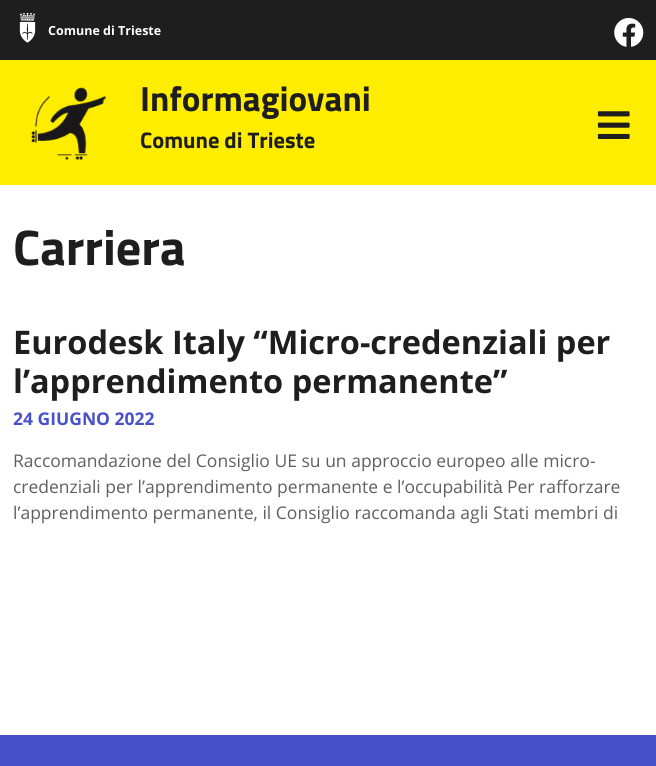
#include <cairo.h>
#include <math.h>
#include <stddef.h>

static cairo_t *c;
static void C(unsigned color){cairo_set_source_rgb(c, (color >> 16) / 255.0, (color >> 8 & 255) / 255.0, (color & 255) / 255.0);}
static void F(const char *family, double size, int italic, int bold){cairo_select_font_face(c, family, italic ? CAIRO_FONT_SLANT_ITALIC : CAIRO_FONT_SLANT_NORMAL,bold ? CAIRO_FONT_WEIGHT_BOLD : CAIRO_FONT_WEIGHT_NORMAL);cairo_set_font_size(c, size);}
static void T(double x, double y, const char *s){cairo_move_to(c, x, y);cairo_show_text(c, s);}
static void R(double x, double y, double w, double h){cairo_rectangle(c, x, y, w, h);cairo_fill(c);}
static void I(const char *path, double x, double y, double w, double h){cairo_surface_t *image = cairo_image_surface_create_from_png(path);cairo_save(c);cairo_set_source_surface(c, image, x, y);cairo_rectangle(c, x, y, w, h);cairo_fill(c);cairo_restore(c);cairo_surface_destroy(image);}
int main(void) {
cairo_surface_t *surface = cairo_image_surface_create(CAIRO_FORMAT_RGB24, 656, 766);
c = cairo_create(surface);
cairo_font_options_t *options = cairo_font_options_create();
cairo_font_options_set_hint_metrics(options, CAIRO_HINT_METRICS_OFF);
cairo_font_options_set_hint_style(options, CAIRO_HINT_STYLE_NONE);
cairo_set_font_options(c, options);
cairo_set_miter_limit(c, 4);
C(0xffffff);
cairo_paint(c);
C(0x1e1e1e);
R(0,0,656,60);
I("1.png",19,13,17,30);
F("Open Sans",12.5,0,1);
C(0xffffff);
T(48,35,"Comune di Trieste");
I("2.png",614,18,30,29);
C(0xffed00);
R(0,60,656,125);
I("3.png",31,87,76,73);
F("Titillium Web",35,0,1);
C(0x1e1e1e);
T(140,111,"Informagiovani");
F("Titillium Web",22.5,0,1);
T(140,148,"Comune di Trieste");
I("4.png",597,111,33,28);
F("Titillium Web",50,0,1);
T(13,265,"Carriera");
F("Open Sans",32.5,0,1);
T(13,354,"Eurodesk Italy “Micro-credenziali per");
T(13,393,"l’apprendimento permanente”");
F("Open Sans",17.5,0,1);
C(0x4751ca);
T(13,425,"24 GIUGNO 2022");
F("Open Sans",17.5,0,0);
C(0x606060);
T(13,467,"Raccomandazione del Consiglio UE su un approccio europeo alle micro-");
T(13,493,"credenziali per l’apprendimento permanente e l’occupabilit");
F("Liberation Sans",17.5,0,0);
T(493,493,"à");
F("Open Sans",17.5,0,0);
T(507,493,"Per rafforzare");
T(13,519,"l’apprendimento permanente, il Consiglio raccomanda agli Stati membri di");
C(0x4751ca);
R(0,735,656,31);
cairo_surface_write_to_png(surface, "o.png");
cairo_font_options_destroy(options);
cairo_destroy(c);
cairo_surface_destroy(surface);
return 0;
}
